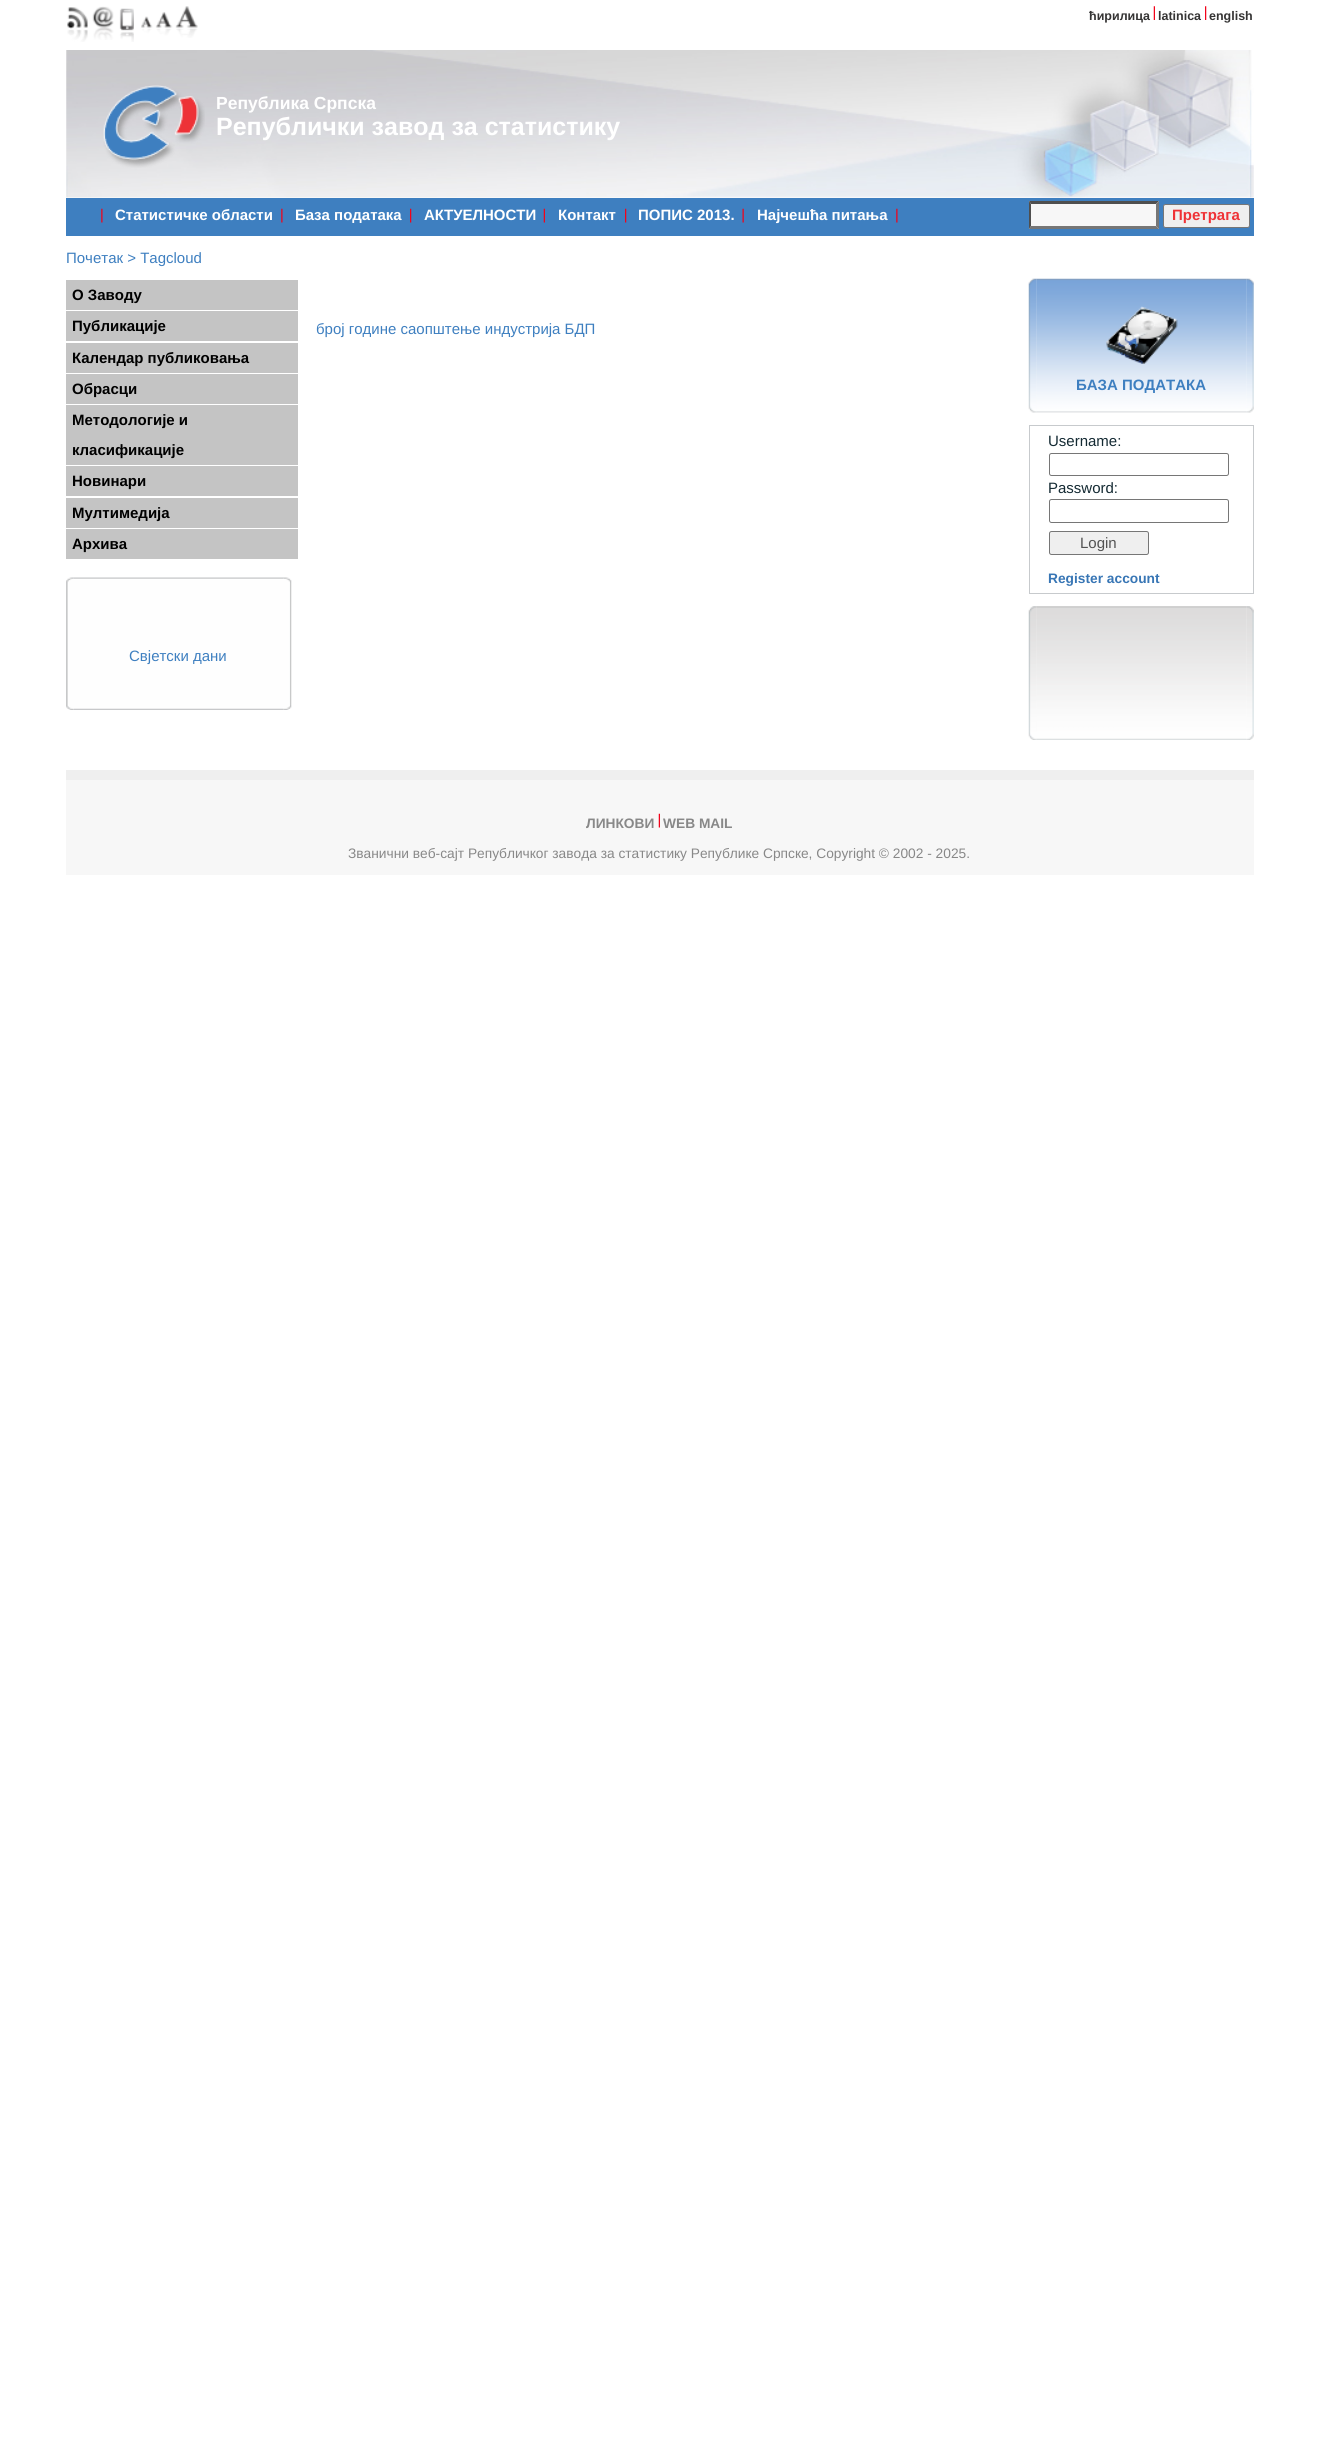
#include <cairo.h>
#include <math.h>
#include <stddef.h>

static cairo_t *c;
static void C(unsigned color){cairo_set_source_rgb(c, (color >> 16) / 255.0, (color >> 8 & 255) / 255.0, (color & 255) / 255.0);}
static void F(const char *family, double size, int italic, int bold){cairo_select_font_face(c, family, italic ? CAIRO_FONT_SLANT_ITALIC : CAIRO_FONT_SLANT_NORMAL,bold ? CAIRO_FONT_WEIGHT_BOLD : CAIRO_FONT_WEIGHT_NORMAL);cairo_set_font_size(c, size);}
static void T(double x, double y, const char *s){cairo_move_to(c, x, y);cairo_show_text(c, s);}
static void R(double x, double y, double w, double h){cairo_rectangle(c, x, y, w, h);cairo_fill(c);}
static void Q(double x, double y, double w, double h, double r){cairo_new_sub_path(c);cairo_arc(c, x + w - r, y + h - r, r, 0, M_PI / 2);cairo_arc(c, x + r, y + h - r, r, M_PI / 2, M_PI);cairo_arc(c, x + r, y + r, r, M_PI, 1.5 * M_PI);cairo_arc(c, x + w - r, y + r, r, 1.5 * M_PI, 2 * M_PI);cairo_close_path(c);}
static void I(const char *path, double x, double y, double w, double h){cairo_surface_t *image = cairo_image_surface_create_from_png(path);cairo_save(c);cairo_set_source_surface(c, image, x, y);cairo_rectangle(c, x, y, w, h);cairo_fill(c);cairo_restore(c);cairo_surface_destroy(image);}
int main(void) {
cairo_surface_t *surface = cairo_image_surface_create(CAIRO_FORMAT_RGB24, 1318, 2451);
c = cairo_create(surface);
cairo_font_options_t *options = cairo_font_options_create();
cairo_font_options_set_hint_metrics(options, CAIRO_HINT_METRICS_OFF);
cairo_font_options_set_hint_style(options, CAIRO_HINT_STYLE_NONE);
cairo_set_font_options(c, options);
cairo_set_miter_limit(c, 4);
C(0xffffff);
cairo_paint(c);
I("1.png",67,7,21,35);
I("2.png",92,6,22,34);
I("3.png",119,8,15,34);
I("4.png",141,6,57,32);
F("Liberation Sans",12.5,0,1);
C(0x353434);
T(1089,20,"ћирилица");
I("5.png",1153,6,2,14);
T(1158,20,"latinica");
I("6.png",1205,6,2,14);
T(1209,20,"english");
I("7.png",66,50,1188,148);
I("8.png",103,85,102,83);
F("Liberation Sans",17.5,0,1);
C(0xffffff);
T(216,109,"Република Српска");
F("Liberation Sans",25,0,1);
T(216,135,"Републички завод за статистику");
C(0x3e7fc0);
R(66,198,1188,38);
I("9.png",101,208,2,15);
F("Liberation Sans",15,0,1);
C(0xffffff);
T(115,220,"Статистичке области");
I("9.png",281,208,2,15);
T(295,220,"Базa података");
I("10.png",410,208,2,15);
T(424,220,"АКТУЕЛНОСТИ");
I("11.png",543,208,2,15);
T(558,220,"Контакт");
I("10.png",625,208,2,15);
T(638,220,"ПОПИС 2013.");
I("12.png",742,208,2,15);
T(757,220,"Најчешћa питања");
I("9.png",896,208,2,15);
C(0xf7f7f7);
R(1029,201,130,28);
C(0x4f4f4f);
cairo_new_path(c);
cairo_move_to(c,1029,201);
cairo_line_to(c,1159,201);
cairo_line_to(c,1156,204);
cairo_line_to(c,1031,204);
cairo_close_path(c);
cairo_fill(c);
C(0x767676);
cairo_new_path(c);
cairo_move_to(c,1159,201);
cairo_line_to(c,1159,229);
cairo_line_to(c,1156,226);
cairo_line_to(c,1156,204);
cairo_close_path(c);
cairo_fill(c);
cairo_new_path(c);
cairo_move_to(c,1159,229);
cairo_line_to(c,1029,229);
cairo_line_to(c,1031,226);
cairo_line_to(c,1156,226);
cairo_close_path(c);
cairo_fill(c);
C(0x4f4f4f);
cairo_new_path(c);
cairo_move_to(c,1029,229);
cairo_line_to(c,1029,201);
cairo_line_to(c,1031,204);
cairo_line_to(c,1031,226);
cairo_close_path(c);
cairo_fill(c);
C(0xefefef);
Q(1163.5,204.5,86,23,2);
cairo_fill_preserve(c);
C(0x767676);
cairo_set_line_width(c,1);
cairo_stroke(c);
C(0xef3236);
T(1172,220,"Претрага");
F("Liberation Sans",15,0,0);
C(0x3e7fc0);
T(66,263,"Почетак > Tagcloud");
C(0xc4c4c4);
R(66,280,232,30);
F("Liberation Sans",15,0,1);
C(0x000000);
T(72,300,"О Заводу");
C(0xc4c4c4);
R(66,311,232,30);
C(0x000000);
T(72,331,"Публикације");
C(0xc4c4c4);
R(66,343,232,30);
C(0x000000);
T(72,363,"Календар публиковања");
C(0xc4c4c4);
R(66,374,232,30);
C(0x000000);
T(72,394,"Обрасци");
C(0xc4c4c4);
R(66,405,232,60);
C(0x000000);
T(72,425,"Методологије и");
T(72,455,"класификације");
C(0xc4c4c4);
R(66,466,232,30);
C(0x000000);
T(72,486,"Новинари");
C(0xc4c4c4);
R(66,498,232,30);
C(0x000000);
T(72,518,"Мултимедија");
C(0xc4c4c4);
R(66,529,232,30);
C(0x000000);
T(72,549,"Архива");
I("13.png",66,577,8,133);
I("14.png",73,577,211,133);
F("Liberation Sans",15,0,0);
C(0x3e7fc0);
T(129,661,"Свјетски дани");
I("15.png",283,577,9,133);
T(316,334,"број године саопштење индустрија БДП");
I("16.png",1028,278,9,135);
I("17.png",1036,278,211,135);
I("18.png",1106,306,72,58);
F("Liberation Sans",15,0,1);
T(1076,390,"БАЗA ПОДАТАКА");
I("19.png",1246,278,8,135);
cairo_rectangle(c,1029.5,425.5,224,168);
C(0xc7cacd);
cairo_stroke(c);
F("Liberation Sans",15,0,0);
C(0x142a33);
T(1048,446,"Username:");
Q(1049.5,453.5,179,22,2);
C(0x767676);
cairo_stroke(c);
C(0x142a33);
T(1048,493,"Password:");
Q(1049.5,499.5,179,23,2);
C(0x767676);
cairo_stroke(c);
C(0xefefef);
Q(1049.5,531.5,99,23,2);
cairo_fill_preserve(c);
C(0x767676);
cairo_stroke(c);
C(0x535353);
T(1080,548,"Login");
F("Liberation Sans",13.75,0,1);
C(0x3876b5);
T(1048,583,"Register account");
I("20.png",1028,606,9,134);
I("21.png",1036,606,211,134);
I("22.png",1246,606,8,134);
C(0xefefef);
R(66,770,1188,10);
C(0xf7f7f7);
R(66,780,1188,95);
C(0x888888);
T(586,828,"ЛИНКОВИ");
I("23.png",658,813,2,15);
T(663,828,"WEB MAIL");
F("Liberation Sans",13.75,0,0);
T(348,858,"Званични веб-сајт Републичког завода за статистику Републике Српске, Copyright © 2002 - 2025.");
cairo_surface_write_to_png(surface, "o.png");
cairo_font_options_destroy(options);
cairo_destroy(c);
cairo_surface_destroy(surface);
return 0;
}
